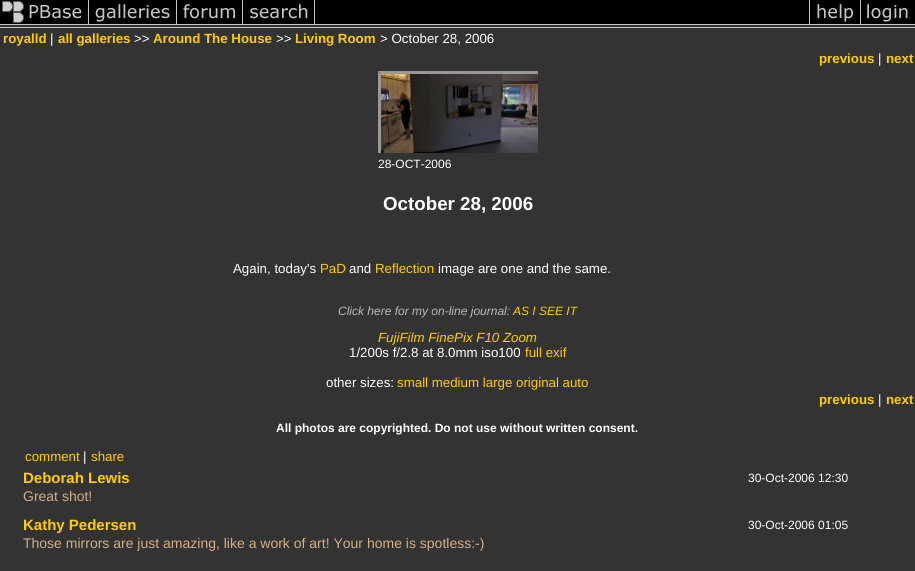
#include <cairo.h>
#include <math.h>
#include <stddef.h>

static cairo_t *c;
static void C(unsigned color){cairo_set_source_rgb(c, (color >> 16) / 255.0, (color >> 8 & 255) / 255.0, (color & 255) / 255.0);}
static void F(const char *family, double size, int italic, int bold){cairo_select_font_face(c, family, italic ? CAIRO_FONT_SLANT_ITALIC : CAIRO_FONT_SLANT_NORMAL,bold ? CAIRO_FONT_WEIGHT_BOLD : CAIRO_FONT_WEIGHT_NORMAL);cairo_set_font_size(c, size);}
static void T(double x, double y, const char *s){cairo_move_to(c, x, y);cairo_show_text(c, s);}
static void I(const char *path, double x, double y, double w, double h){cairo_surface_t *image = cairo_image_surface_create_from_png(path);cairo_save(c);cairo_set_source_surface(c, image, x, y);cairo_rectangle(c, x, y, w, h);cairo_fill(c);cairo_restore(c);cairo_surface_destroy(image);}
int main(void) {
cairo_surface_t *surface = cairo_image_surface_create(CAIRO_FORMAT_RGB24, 915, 571);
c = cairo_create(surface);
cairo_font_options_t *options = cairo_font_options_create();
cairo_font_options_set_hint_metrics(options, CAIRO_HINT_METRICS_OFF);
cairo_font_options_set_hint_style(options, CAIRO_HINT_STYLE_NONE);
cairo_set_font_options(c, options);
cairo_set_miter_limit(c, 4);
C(0x333333);
cairo_paint(c);
I("1.png",0,0,89,28);
I("2.png",89,0,88,28);
I("3.png",177,0,66,28);
I("4.png",243,0,72,28);
I("5.png",315,0,494,28);
I("6.png",809,0,52,28);
I("7.png",861,0,54,28);
F("Liberation Sans",13.3,0,1);
C(0xffcc00);
T(3,43,"royalld");
F("Liberation Sans",13.3,0,0);
C(0xffffff);
T(50,43,"|");
F("Liberation Sans",13.3,0,1);
C(0xffcc00);
T(58,43,"all galleries");
F("Liberation Sans",13.3,0,0);
C(0xffffff);
T(134,43,">>");
F("Liberation Sans",13.3,0,1);
C(0xffcc00);
T(153,43,"Around The House");
F("Liberation Sans",13.3,0,0);
C(0xffffff);
T(276,43,">>");
F("Liberation Sans",13.3,0,1);
C(0xffcc00);
T(295,43,"Living Room");
F("Liberation Sans",13.3,0,0);
C(0xffffff);
T(380,43,"> October 28, 2006");
F("Liberation Sans",13.3,0,1);
C(0xffcc00);
T(819,63,"previous");
F("Liberation Sans",13.3,0,0);
C(0xffffff);
T(878,63,"|");
F("Liberation Sans",13.3,0,1);
C(0xffcc00);
T(886,63,"next");
cairo_save(c);
cairo_rectangle(c,378,71,160,82);
cairo_clip(c);
C(0x999999);
cairo_new_path(c);
cairo_move_to(c,378,71);
cairo_line_to(c,542,71);
cairo_line_to(c,539,74);
cairo_line_to(c,381,74);
cairo_close_path(c);
cairo_fill(c);
cairo_new_path(c);
cairo_move_to(c,378,158);
cairo_line_to(c,378,71);
cairo_line_to(c,381,74);
cairo_line_to(c,381,155);
cairo_close_path(c);
cairo_fill(c);
cairo_restore(c);
I("8.png",381,74,157,79);
F("Liberation Sans",12,0,0);
C(0xffffff);
T(378,168,"28-OCT-2006");
F("Liberation Sans",18.75,0,1);
T(383,210,"October 28, 2006");
F("Liberation Sans",13.3,0,0);
T(233,273,"Again, today's");
C(0xffcc00);
T(320,273,"PaD");
C(0xffffff);
T(349,273,"and");
C(0xffcc00);
T(375,273,"Reflection");
C(0xffffff);
T(438,273,"image are one and the same.");
F("Liberation Sans",12,1,0);
C(0xbbbbbb);
T(338,315,"Click here for my on-line journal:");
C(0xffcc00);
T(513,315,"AS I SEE IT");
F("Liberation Sans",13.3,1,0);
T(378,342,"FujiFilm FinePix F10 Zoom");
F("Liberation Sans",13.3,0,0);
C(0xffffff);
T(349,357,"1/200s f/2.8 at 8.0mm iso100");
C(0xffcc00);
T(525,357,"full exif");
C(0xffffff);
T(326,387,"other sizes:");
C(0xffcc00);
T(397,387,"small medium large original auto");
F("Liberation Sans",13.3,0,1);
T(819,404,"previous");
F("Liberation Sans",13.3,0,0);
C(0xffffff);
T(878,404,"|");
F("Liberation Sans",13.3,0,1);
C(0xffcc00);
T(886,404,"next");
F("Liberation Sans",12,0,1);
C(0xffffff);
T(276,432,"All photos are copyrighted. Do not use without written consent.");
F("Liberation Sans",13.3,0,0);
C(0xffcc00);
T(25,461,"comment");
C(0xffffff);
T(83,461,"|");
C(0xffcc00);
T(91,461,"share");
F("Liberation Sans",15,0,1);
T(23,483,"Deborah Lewis");
F("Liberation Sans",12,0,0);
C(0xffffff);
T(748,482,"30-Oct-2006 12:30");
F("Liberation Sans",14,0,0);
C(0xd5ae83);
T(23,501,"Great shot!");
F("Liberation Sans",15,0,1);
C(0xffcc00);
T(23,530,"Kathy Pedersen");
F("Liberation Sans",12,0,0);
C(0xffffff);
T(748,529,"30-Oct-2006 01:05");
F("Liberation Sans",14,0,0);
C(0xd5ae83);
T(23,548,"Those mirrors are just amazing, like a work of art! Your home is spotless:-)");
cairo_surface_write_to_png(surface, "o.png");
cairo_font_options_destroy(options);
cairo_destroy(c);
cairo_surface_destroy(surface);
return 0;
}
